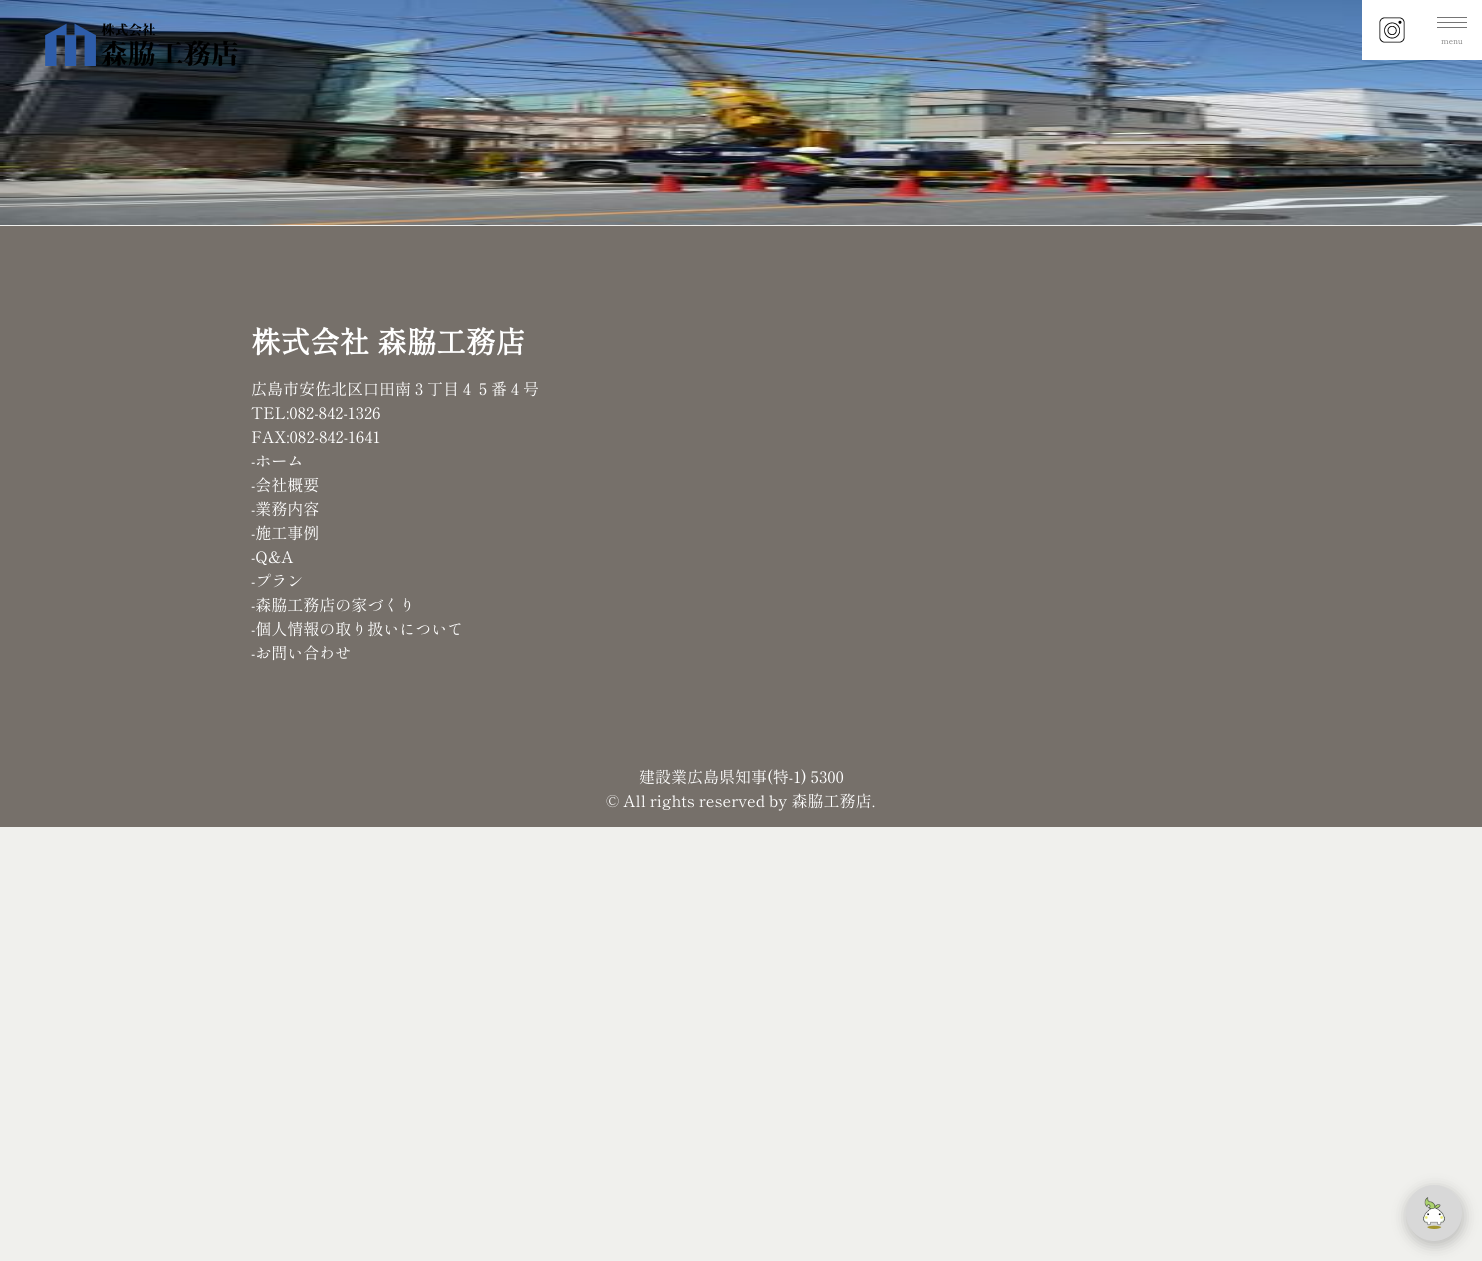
#include <cairo.h>
#include <math.h>
#include <stddef.h>

static cairo_t *c;
static void C(unsigned color){cairo_set_source_rgb(c, (color >> 16) / 255.0, (color >> 8 & 255) / 255.0, (color & 255) / 255.0);}
static void F(const char *family, double size, int italic, int bold){cairo_select_font_face(c, family, italic ? CAIRO_FONT_SLANT_ITALIC : CAIRO_FONT_SLANT_NORMAL,bold ? CAIRO_FONT_WEIGHT_BOLD : CAIRO_FONT_WEIGHT_NORMAL);cairo_set_font_size(c, size);}
static void T(double x, double y, const char *s){cairo_move_to(c, x, y);cairo_show_text(c, s);}
static void R(double x, double y, double w, double h){cairo_rectangle(c, x, y, w, h);cairo_fill(c);}
static void Q(double x, double y, double w, double h, double r){cairo_new_sub_path(c);cairo_arc(c, x + w - r, y + h - r, r, 0, M_PI / 2);cairo_arc(c, x + r, y + h - r, r, M_PI / 2, M_PI);cairo_arc(c, x + r, y + r, r, M_PI, 1.5 * M_PI);cairo_arc(c, x + w - r, y + r, r, 1.5 * M_PI, 2 * M_PI);cairo_close_path(c);}
static void S(double x, double y, double w, double h, double r, double blur, double alpha){cairo_push_group_with_content(c, CAIRO_CONTENT_ALPHA);cairo_set_operator(c, CAIRO_OPERATOR_SOURCE);for (int i = 15; i >= -15 && fmin(w, h) + blur * i / 3 > 0; i -= 2) {double e = blur * i / 6;cairo_set_source_rgba(c, 0, 0, 0, alpha * erfc((i - 1) / 8.5) / 2);Q(x - e, y - e, w + 2 * e, h + 2 * e, fmax(0, fmin(r + e + blur * .6, fmin(w, h) / 2 + e)));cairo_fill(c);}cairo_pattern_t *soft = cairo_pop_group(c);cairo_mask(c, soft);cairo_pattern_destroy(soft);}
static void I(const char *path, double x, double y, double w, double h){cairo_surface_t *image = cairo_image_surface_create_from_png(path);cairo_save(c);cairo_set_source_surface(c, image, x, y);cairo_rectangle(c, x, y, w, h);cairo_fill(c);cairo_restore(c);cairo_surface_destroy(image);}
int main(void) {
cairo_surface_t *surface = cairo_image_surface_create(CAIRO_FORMAT_RGB24, 1482, 1261);
c = cairo_create(surface);
cairo_font_options_t *options = cairo_font_options_create();
cairo_font_options_set_hint_metrics(options, CAIRO_HINT_METRICS_OFF);
cairo_font_options_set_hint_style(options, CAIRO_HINT_STYLE_NONE);
cairo_set_font_options(c, options);
cairo_set_miter_limit(c, 4);
C(0xf0f0ed);
cairo_paint(c);
I("1.png",0,0,1482,225);
I("2.png",45,23,193,43);
C(0xffffff);
R(1362,0,120,60);
I("3.png",1379,17,26,26);
C(0x757575);
R(1437,27,30,1);
R(1437,17,30,1);
R(1437,22,30,1);
F("Shippori Mincho",8,0,0);
T(1441,44,"menu");
C(0x76706a);
R(0,226,1482,601);
F("Shippori Mincho",29.6,0,1);
C(0xffffff);
T(251,353,"株式会社 森脇工務店");
F("Shippori Mincho",16,0,0);
T(251,395,"広島市安佐北区口田南３丁目４５番４号");
T(251,419,"TEL:082-842-1326");
T(251,443,"FAX:082-842-1641");
T(251,467,"-ホーム");
T(251,491,"-会社概要");
T(251,515,"-業務内容");
T(251,539,"-施工事例");
T(251,563,"-Q&A");
T(251,587,"-プラン");
T(251,611,"-森脇工務店の家づくり");
T(251,635,"-個人情報の取り扱いについて");
T(251,659,"-お問い合わせ");
T(639,783,"建設業広島県知事(特-1) 5300");
T(606,807,"© All rights reserved by 森脇工務店.");
C(0x000000);
S(1407,1189,56,56,28,7.5,.24);
C(0xd8d8d8);
cairo_arc(c,1434,1213,28,0,2 * M_PI);
cairo_fill(c);
I("4.png",1423,1197,22,32);
cairo_surface_write_to_png(surface, "o.png");
cairo_font_options_destroy(options);
cairo_destroy(c);
cairo_surface_destroy(surface);
return 0;
}
